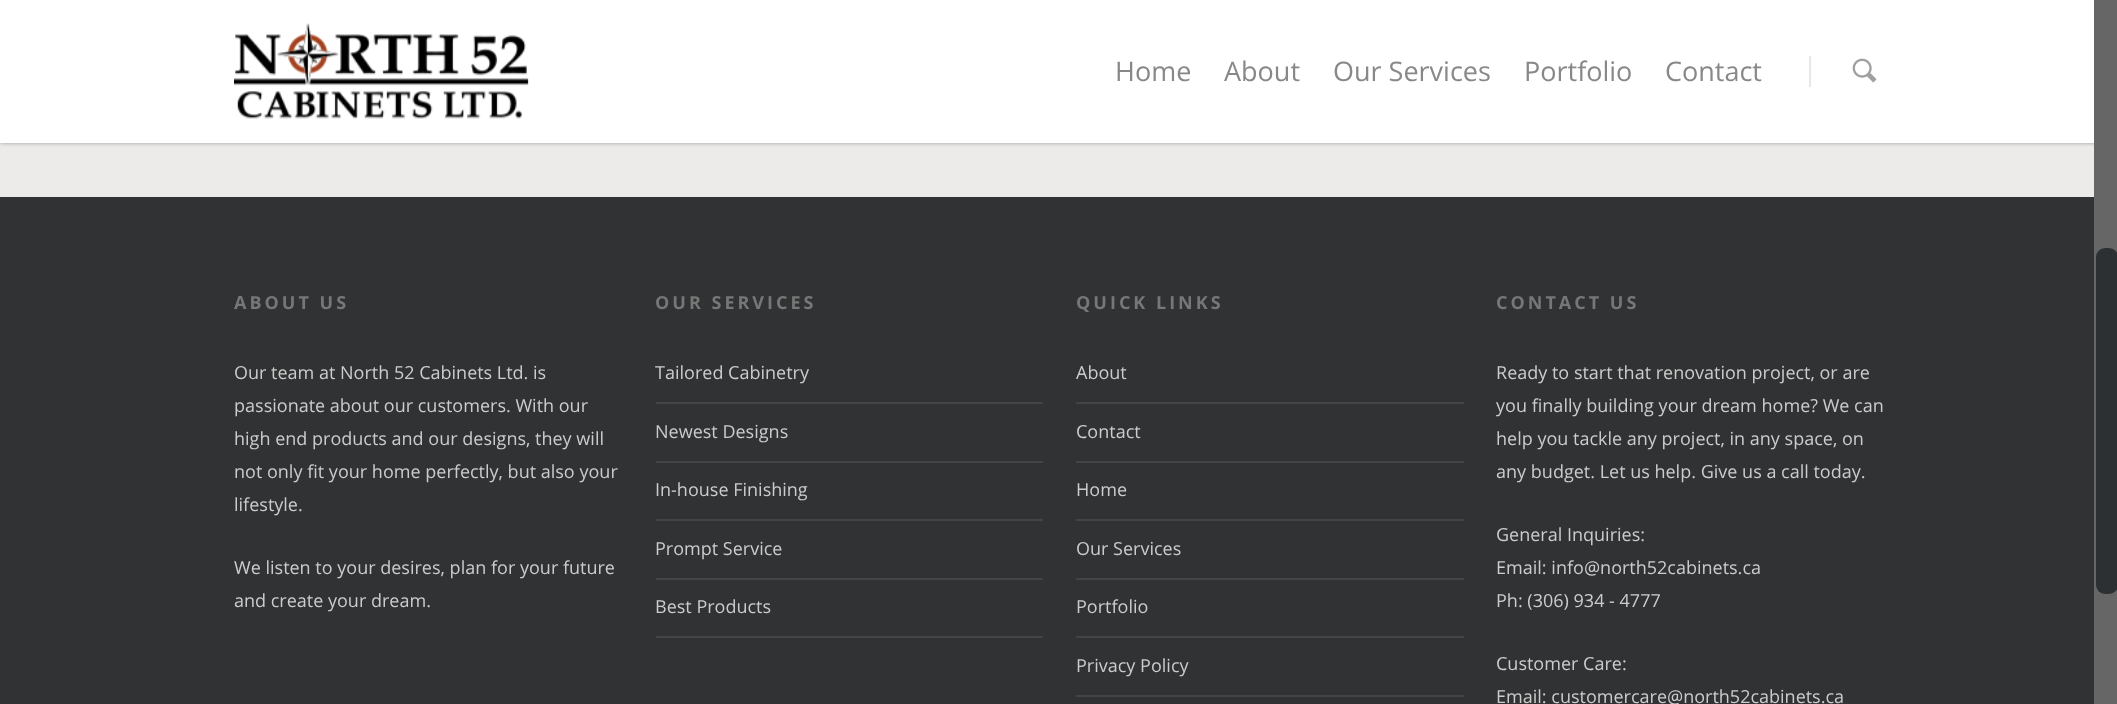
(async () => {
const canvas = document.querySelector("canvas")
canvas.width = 2117
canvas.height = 704
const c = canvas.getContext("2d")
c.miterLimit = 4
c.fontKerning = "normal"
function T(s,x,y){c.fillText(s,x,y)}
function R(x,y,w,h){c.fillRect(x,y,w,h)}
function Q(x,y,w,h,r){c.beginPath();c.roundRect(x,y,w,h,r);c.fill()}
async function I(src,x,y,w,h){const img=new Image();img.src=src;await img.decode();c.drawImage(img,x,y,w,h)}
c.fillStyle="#ecebe9"
R(0,0,2117,704)
c.fillStyle="#00000054"
c.filter="blur(2px)"
c.beginPath()
c.rect(0,0,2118,143)
c.fill()
c.filter="none"
c.fillStyle="#fff"
R(0,0,2094,143)
await I("1.png",234,23,295,96)
c.font="27px 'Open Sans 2'"
c.fillStyle="#888"
T("Home",1115,81)
T("About",1224,81)
T("Our Services",1333,81)
T("Portfolio",1524,81)
T("Contact",1665,81)
c.fillStyle="#e7e7e7"
R(1809,56,2,31)
await I("2.png",1852,58,25,25)
c.fillStyle="#666"
R(2094,0,23,704)
c.fillStyle="#2d3032"
Q(2096,248,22,346,9)
c.fillStyle="#313233"
R(0,197,2094,507)
c.letterSpacing="3px"
c.font="bold 18px Open Sans"
c.fillStyle="#777"
T("ABOUT US",234,309)
c.letterSpacing="0px"
c.font="18px Open Sans"
c.fillStyle="#ccc"
T("Our team at North 52 Cabinets Ltd. is",234,379)
T("passionate about our customers. With our",234,412)
T("high end products and our designs, they will",234,445)
T("not only fit your home perfectly, but also your",234,478)
T("lifestyle.",234,511)
T("We listen to your desires, plan for your future",234,574)
T("and create your dream.",234,607)
c.letterSpacing="3px"
c.font="bold 18px Open Sans"
c.fillStyle="#777"
T("OUR SERVICES",655,309)
c.fillStyle="#444"
R(656,402,387,2)
c.letterSpacing="0px"
c.font="18px Open Sans"
c.fillStyle="#ccc"
T("Tailored Cabinetry",655,379)
c.fillStyle="#444"
R(656,461,387,2)
c.fillStyle="#ccc"
T("Newest Designs",655,438)
c.fillStyle="#444"
R(656,519,387,2)
c.fillStyle="#ccc"
T("In-house Finishing",655,496)
c.fillStyle="#444"
R(656,578,387,2)
c.fillStyle="#ccc"
T("Prompt Service",655,555)
c.fillStyle="#444"
R(656,636,387,2)
c.fillStyle="#ccc"
T("Best Products",655,613)
c.letterSpacing="3px"
c.font="bold 18px Open Sans"
c.fillStyle="#777"
T("QUICK LINKS",1076,309)
c.fillStyle="#444"
R(1076,402,388,2)
c.letterSpacing="0px"
c.font="18px Open Sans"
c.fillStyle="#ccc"
T("About",1076,379)
c.fillStyle="#444"
R(1076,461,388,2)
c.fillStyle="#ccc"
T("Contact",1076,438)
c.fillStyle="#444"
R(1076,519,388,2)
c.fillStyle="#ccc"
T("Home",1076,496)
c.fillStyle="#444"
R(1076,578,388,2)
c.fillStyle="#ccc"
T("Our Services",1076,555)
c.fillStyle="#444"
R(1076,636,388,2)
c.fillStyle="#ccc"
T("Portfolio",1076,613)
c.fillStyle="#444"
R(1076,695,388,2)
c.fillStyle="#ccc"
T("Privacy Policy",1076,672)
c.letterSpacing="3px"
c.font="bold 18px Open Sans"
c.fillStyle="#777"
T("CONTACT US",1496,309)
c.letterSpacing="0px"
c.font="18px Open Sans"
c.fillStyle="#ccc"
T("Ready to start that renovation project, or are",1496,379)
T("you finally building your dream home? We can",1496,412)
T("help you tackle any project, in any space, on",1496,445)
T("any budget. Let us help. Give us a call today.",1496,478)
T("General Inquiries:",1496,541)
T("Email: info@north52cabinets.ca",1496,574)
T("Ph: (306) 934 - 4777",1496,607)
T("Customer Care:",1496,670)
T("Email: customercare@north52cabinets.ca",1496,703)
})()
